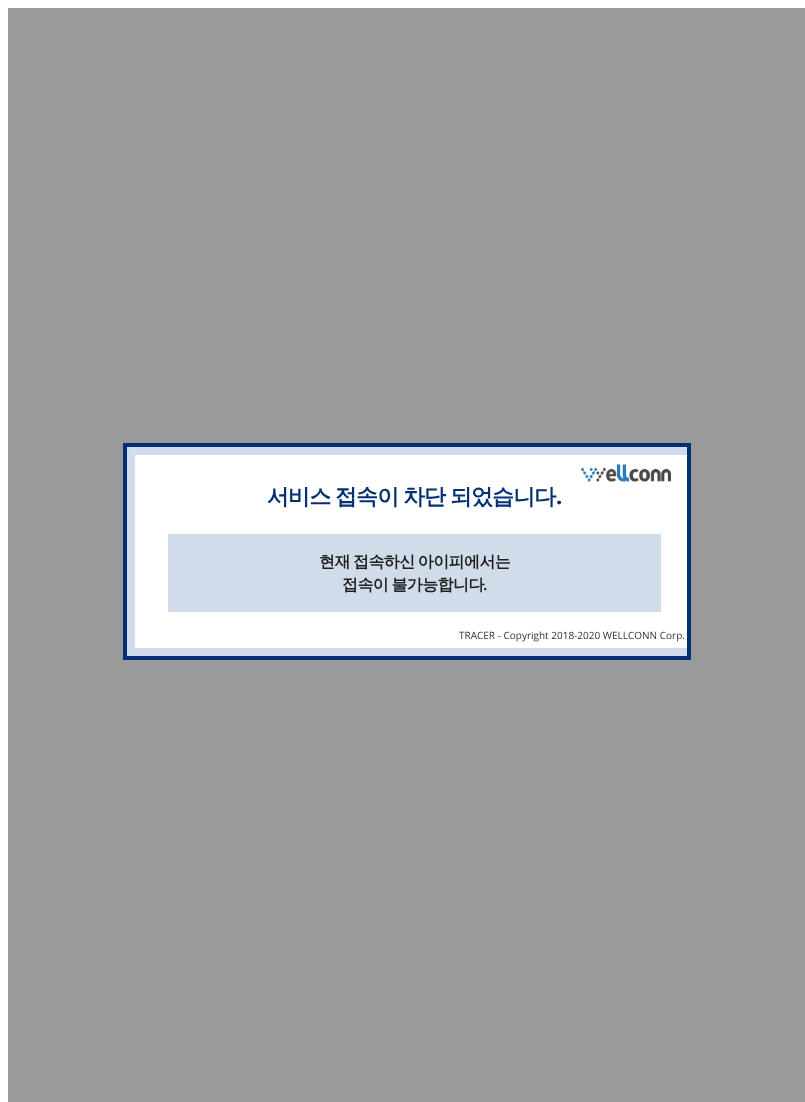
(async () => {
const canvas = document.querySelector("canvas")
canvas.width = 805
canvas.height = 1102
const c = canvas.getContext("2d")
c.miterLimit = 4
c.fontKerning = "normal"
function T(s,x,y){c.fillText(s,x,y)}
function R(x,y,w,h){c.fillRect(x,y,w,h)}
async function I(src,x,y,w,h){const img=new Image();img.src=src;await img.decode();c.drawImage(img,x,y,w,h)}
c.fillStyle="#fff"
R(0,0,805,1102)
c.fillStyle="#9a9a9a"
R(8,8,797,1094)
c.strokeStyle="#033074"
c.lineWidth=4
c.strokeRect(125,445,564,213)
c.fillStyle="#fff"
R(135,455,552,193)
c.save()
c.beginPath()
c.rect(127,447,560,209)
c.clip()
c.strokeStyle="#d0dcea"
c.lineWidth=8
c.strokeRect(131,451,568,201)
c.restore()
await I("1.png",581,464,90,18)
c.letterSpacing="-0.9px"
c.wordSpacing="-1px"
c.font="bold 22px WenQuanYi Zen Hei"
c.fillStyle="#033074"
T("서비스 접속이 차단 되었습니다",267,504)
c.wordSpacing="0px"
c.font="bold 22px Open Sans"
T(".",556,504)
c.fillStyle="#d0dcea"
R(168,534,493,78)
c.letterSpacing="-0.6px"
c.wordSpacing="-1px"
c.font="bold 16px WenQuanYi Zen Hei"
c.fillStyle="#1e1e1e"
T("현재 접속하신 아이피에서는",319,567)
T("접속이 불가능합니다",342,590)
c.wordSpacing="0px"
c.font="600 16px Open Sans"
T(".",483,590)
c.letterSpacing="0px"
c.font="10px Open Sans"
c.fillStyle="#333"
T("TRACER - Copyright 2018-2020 WELLCONN Corp.",459,639)
})()
